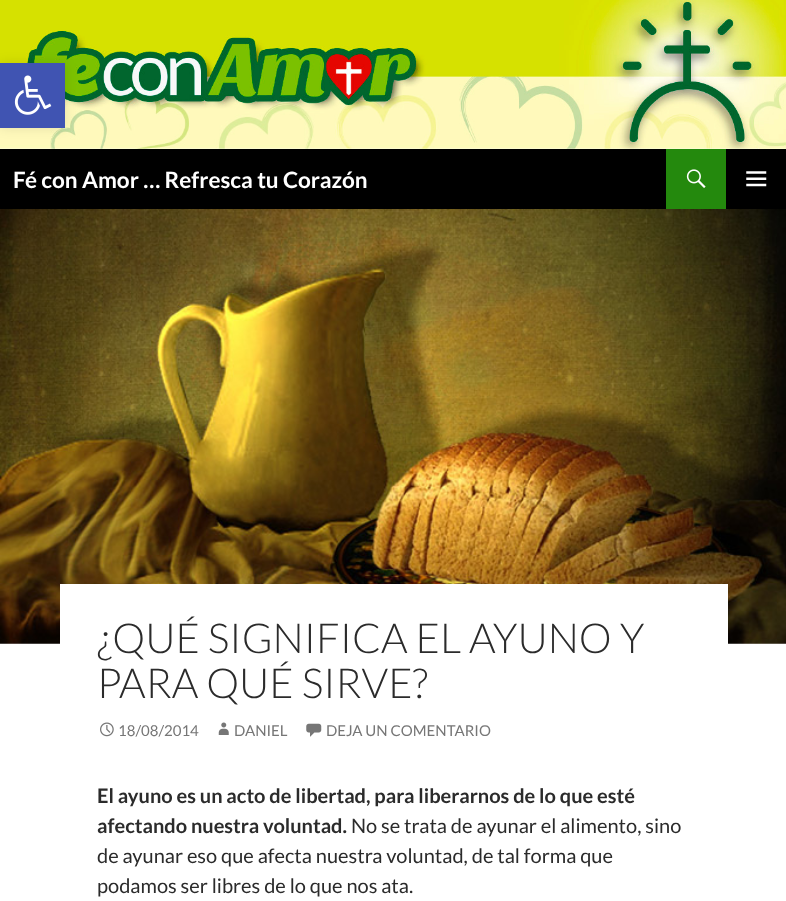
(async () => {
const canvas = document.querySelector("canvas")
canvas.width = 786
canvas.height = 901
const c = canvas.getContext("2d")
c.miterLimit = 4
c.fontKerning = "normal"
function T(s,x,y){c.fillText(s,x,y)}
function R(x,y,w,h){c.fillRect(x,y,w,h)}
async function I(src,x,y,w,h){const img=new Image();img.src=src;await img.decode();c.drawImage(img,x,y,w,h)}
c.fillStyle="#fff"
R(0,0,786,901)
await I("2.png",0,0,786,149)
c.fillStyle="#0000001a"
c.filter="blur(6px)"
c.beginPath()
c.rect(0,63,65,65)
c.fill()
c.filter="none"
c.fillStyle="#4054b2"
R(0,63,65,65)
await I("1.png",14,75,38,40)
c.fillStyle="#000"
R(0,149,786,60)
c.font="bold 22.5px Lato"
c.fillStyle="#fff"
T("Fé con Amor … Refresca tu Corazón",13,188)
c.fillStyle="#24890d"
R(666,149,60,60)
await I("3.png",686,169,20,19)
await I("4.png",746,171,21,16)
await I("5.png",0,643,786,1)
await I("6.png",0,209,786,435)
c.fillStyle="#fff"
R(60,584,668,60)
c.font="300 41.25px Lato"
c.fillStyle="#2b2b2b"
T("¿QUÉ SIGNIFICA EL AYUNO Y",97,653)
T("PARA QUÉ SIRVE?",97,698)
await I("7.png",100,722,14,15)
c.font="15px Lato"
c.fillStyle="#767676"
T("18/08/2014",118,736)
await I("8.png",218,722,11,13)
T("DANIEL",234,736)
await I("9.png",306,723,16,14)
T("DEJA UN COMENTARIO",326,736)
c.font="bold 20px Lato"
c.fillStyle="#2b2b2b"
T("El ayuno es un acto de libertad, para liberarnos de lo que esté",97,803)
T("afectando nuestra voluntad.",97,833)
c.font="20px Lato"
T("No se trata de ayunar el alimento, sino",351,833)
T("de ayunar eso que afecta nuestra voluntad, de tal forma que",97,863)
T("podamos ser libres de lo que nos ata.",97,893)
})()
